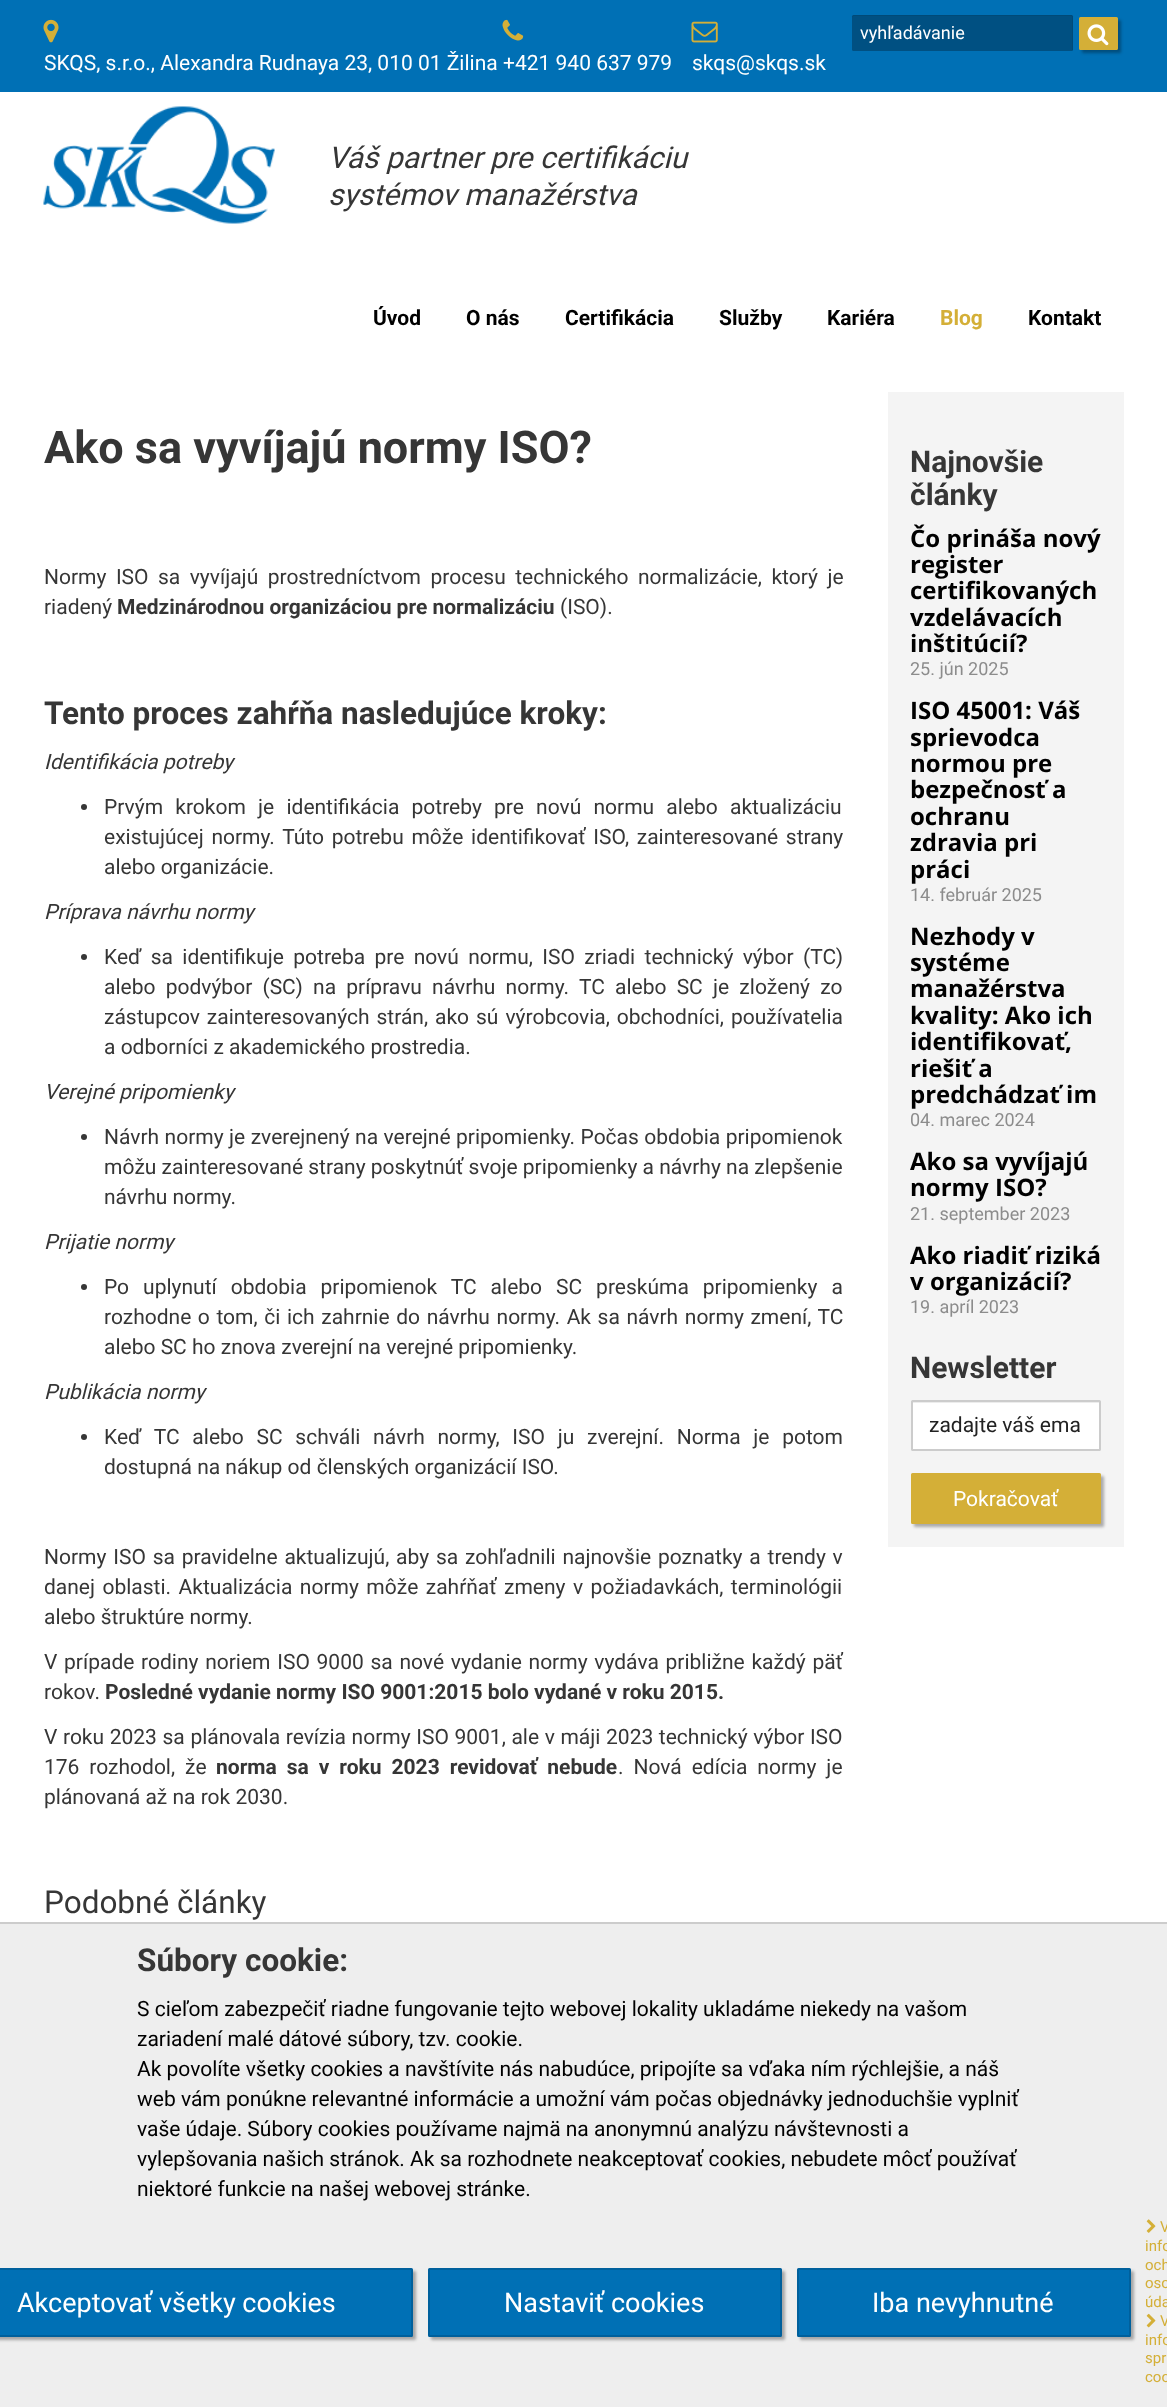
(async () => {
const canvas = document.querySelector("canvas")
canvas.width = 1167
canvas.height = 2407
const c = canvas.getContext("2d")
c.miterLimit = 4
c.fontKerning = "normal"
function T(s,x,y){c.fillText(s,x,y)}
function R(x,y,w,h){c.fillRect(x,y,w,h)}
function Q(x,y,w,h,r){c.beginPath();c.roundRect(x,y,w,h,r);c.fill()}
async function I(src,x,y,w,h){const img=new Image();img.src=src;await img.decode();c.drawImage(img,x,y,w,h)}
let path
c.fillStyle="#fff"
R(0,0,1167,2407)
c.fillStyle="#0070b5"
R(0,0,1167,92)
c.fillStyle="#005082"
Q(852,15,221,36,1.5)
c.fillStyle="#00000012"
path = new Path2D("M854 16h217c1 0 1 1 1 2v33l1-1v-34l-1-1h-219c-1 1-1 2-1 3c0-1 1-2 2-2z")
c.fill(path)
c.font="18px Roboto"
c.fillStyle="#fff"
T("vyhľadávanie",860,39)
c.fillStyle="#0000004d"
c.filter="blur(1.5px)"
c.beginPath()
c.roundRect(1082,20,39,33,1.5)
c.fill()
c.filter="none"
c.fillStyle="#d4af37"
c.beginPath()
c.roundRect(1080,18,37,31,.5)
c.fill()
c.strokeStyle="#d4af37"
c.lineWidth=2
c.stroke()
await I("1.png",1087,24,22,22)
await I("2.png",43,19,16,24)
c.font="21px Roboto"
c.fillStyle="#fff"
T("SKQS, s.r.o., Alexandra Rudnaya 23, 010 01 Žilina",44,70)
await I("3.png",502,19,22,22)
T("+421 940 637 979",503,70)
await I("4.png",691,21,27,22)
T("skqs@skqs.sk",692,70)
await I("5.png",43,106,232,118)
c.font="italic 30px Roboto"
c.fillStyle="#363636"
T("Váš partner pre certifikáciu",328,168)
T("systémov manažérstva",328,205)
c.font="bold 21px Roboto"
c.fillStyle="#000"
T("Úvod",373,325)
T("O nás",466,325)
T("Certifikácia",565,325)
T("Služby",719,325)
T("Kariéra",827,325)
c.fillStyle="#d4af37"
T("Blog",940,325)
c.fillStyle="#000"
T("Kontakt",1028,325)
c.font="bold 45px Roboto"
c.fillStyle="#363636"
T("Ako sa vyvíjajú normy ISO?",44,463)
c.wordSpacing="4.25px"
c.font="21px Roboto"
T("Normy ISO sa vyvíjajú prostredníctvom procesu technického normalizácie, ktorý je",44,584)
c.wordSpacing="0px"
T("riadený",44,614)
c.font="bold 21px Roboto"
T("Medzinárodnou organizáciou pre normalizáciu",117,614)
c.font="21px Roboto"
T("(ISO).",560,614)
c.font="bold 31.5px Roboto"
T("Tento proces zahŕňa nasledujúce kroky:",44,724)
c.font="italic 21px Roboto"
T("Identifikácia potreby",44,769)
c.beginPath()
c.arc(84,807,3,0,7)
c.fill()
c.wordSpacing="7px"
c.font="21px Roboto"
T("Prvým krokom je identifikácia potreby pre novú normu alebo aktualizáciu",104,814)
c.wordSpacing="2.5px"
T("existujúcej normy. Túto potrebu môže identifikovať ISO, zainteresované strany",104,844)
c.wordSpacing="0px"
T("alebo organizácie.",104,874)
c.font="italic 21px Roboto"
T("Príprava návrhu normy",44,919)
c.beginPath()
c.arc(84,957,3,0,7)
c.fill()
c.wordSpacing="4.1px"
c.font="21px Roboto"
T("Keď sa identifikuje potreba pre novú normu, ISO zriadi technický výbor (TC)",104,964)
c.wordSpacing="5px"
T("alebo podvýbor (SC) na prípravu návrhu normy. TC alebo SC je zložený zo",104,994)
c.wordSpacing="1.75px"
T("zástupcov zainteresovaných strán, ako sú výrobcovia, obchodníci, používatelia",104,1024)
c.wordSpacing="0px"
T("a odborníci z akademického prostredia.",104,1054)
c.font="italic 21px Roboto"
T("Verejné pripomienky",44,1099)
c.beginPath()
c.arc(84,1137,3,0,7)
c.fill()
c.wordSpacing="0.25px"
c.font="21px Roboto"
T("Návrh normy je zverejnený na verejné pripomienky. Počas obdobia pripomienok",104,1144)
c.wordSpacing="0px"
T("môžu zainteresované strany poskytnúť svoje pripomienky a návrhy na zlepšenie",104,1174)
T("návrhu normy.",104,1204)
c.font="italic 21px Roboto"
T("Prijatie normy",44,1249)
c.beginPath()
c.arc(84,1287,3,0,7)
c.fill()
c.wordSpacing="8.75px"
c.font="21px Roboto"
T("Po uplynutí obdobia pripomienok TC alebo SC preskúma pripomienky a",104,1294)
c.wordSpacing="1.4px"
T("rozhodne o tom, či ich zahrnie do návrhu normy. Ak sa návrh normy zmení, TC",104,1324)
c.wordSpacing="0px"
T("alebo SC ho znova zverejní na verejné pripomienky.",104,1354)
c.font="italic 21px Roboto"
T("Publikácia normy",44,1399)
c.beginPath()
c.arc(84,1437,3,0,7)
c.fill()
c.wordSpacing="7.5px"
c.font="21px Roboto"
T("Keď TC alebo SC schváli návrh normy, ISO ju zverejní. Norma je potom",104,1444)
c.wordSpacing="0px"
T("dostupná na nákup od členských organizácií ISO.",104,1474)
c.wordSpacing="1.6px"
T("Normy ISO sa pravidelne aktualizujú, aby sa zohľadnili najnovšie poznatky a trendy v",44,1564)
c.wordSpacing="2.25px"
T("danej oblasti. Aktualizácia normy môže zahŕňať zmeny v požiadavkách, terminológii",44,1594)
c.wordSpacing="0px"
T("alebo štruktúre normy.",44,1624)
c.wordSpacing="1.5px"
T("V prípade rodiny noriem ISO 9000 sa nové vydanie normy vydáva približne každý päť",44,1669)
c.wordSpacing="0px"
T("rokov.",44,1699)
c.font="bold 21px Roboto"
T("Posledné vydanie normy ISO 9001:2015 bolo vydané v roku 2015.",105,1699)
c.wordSpacing="0.4px"
c.font="21px Roboto"
T("V roku 2023 sa plánovala revízia normy ISO 9001, ale v máji 2023 technický výbor ISO",44,1744)
c.wordSpacing="4.75px"
T("176 rozhodol, že",44,1774)
c.font="bold 21px Roboto"
T("norma sa v roku 2023 revidovať nebude",216,1774)
c.font="21px Roboto"
T(". Nová edícia normy je",618,1774)
c.wordSpacing="0px"
T("plánovaná až na rok 2030.",44,1804)
c.fillStyle="#f4f4f4"
R(888,392,236,1155)
c.font="bold 30px Roboto"
c.fillStyle="#363636"
T("Najnovšie",910,472)
T("články",910,505)
c.font="bold 24px Open Sans"
c.fillStyle="#000"
T("Čo prináša nový",910,547)
T("register",910,573)
T("certifikovaných",910,599)
T("vzdelávacích",910,626)
T("inštitúcií?",910,652)
c.font="18px Roboto"
c.fillStyle="#8c8c8c"
T("25. jún 2025",910,675)
c.font="bold 24px Open Sans"
c.fillStyle="#000"
T("ISO 45001: Váš",910,719)
T("sprievodca",910,746)
T("normou pre",910,772)
T("bezpečnosť a",910,798)
T("ochranu",910,825)
T("zdravia pri",910,851)
T("práci",910,878)
c.font="18px Roboto"
c.fillStyle="#8c8c8c"
T("14. február 2025",910,901)
c.font="bold 24px Open Sans"
c.fillStyle="#000"
T("Nezhody v",910,945)
T("systéme",910,971)
T("manažérstva",910,997)
T("kvality: Ako ich",910,1024)
T("identifikovať,",910,1050)
T("riešiť a",910,1077)
T("predchádzať im",910,1103)
c.font="18px Roboto"
c.fillStyle="#8c8c8c"
T("04. marec 2024",910,1126)
c.font="bold 24px Open Sans"
c.fillStyle="#000"
T("Ako sa vyvíjajú",910,1170)
T("normy ISO?",910,1196)
c.font="18px Roboto"
c.fillStyle="#8c8c8c"
T("21. september 2023",910,1220)
c.font="bold 24px Open Sans"
c.fillStyle="#000"
T("Ako riadiť riziká",910,1264)
T("v organizácií?",910,1290)
c.font="18px Roboto"
c.fillStyle="#8c8c8c"
T("19. apríl 2023",910,1313)
c.font="bold 30px Roboto"
c.fillStyle="#363636"
T("Newsletter",910,1378)
c.fillStyle="#fff"
Q(911,1400,190,51,1.5)
c.fillStyle="#ececec"
R(912,1402,188,1)
c.beginPath()
c.roundRect(912,1401,188,49,.5)
c.strokeStyle="#ccc"
c.stroke()
c.font="21px Roboto"
c.fillStyle="#222"
T("zadajte váš ema",929,1432)
c.fillStyle="#0000004d"
c.filter="blur(1.5px)"
c.beginPath()
c.roundRect(914,1476,190,51,1.5)
c.fill()
c.filter="none"
c.fillStyle="#d4af37"
c.beginPath()
c.roundRect(912,1474,188,49,.5)
c.fill()
c.strokeStyle="#d4af37"
c.stroke()
c.fillStyle="#fff"
T("Pokračovať",953,1506)
c.font="31.5px Roboto"
c.fillStyle="#363636"
T("Podobné články",44,1913)
c.fillStyle="#eee"
R(0,1924,1167,483)
c.fillStyle="#ccc"
R(0,1922,1167,2)
c.font="bold 31.5px Roboto"
c.fillStyle="#363636"
T("Súbory cookie:",137,1971)
c.font="21px Roboto"
c.fillStyle="#000"
T("S cieľom zabezpečiť riadne fungovanie tejto webovej lokality ukladáme niekedy na vašom",137,2016)
T("zariadení malé dátové súbory, tzv. cookie.",137,2046)
T("Ak povolíte všetky cookies a navštívite nás nabudúce, pripojíte sa vďaka ním rýchlejšie, a náš",137,2076)
T("web vám ponúkne relevantné informácie a umožní vám počas objednávky jednoduchšie vyplniť",137,2106)
T("vaše údaje. Súbory cookies používame najmä na anonymnú analýzu návštevnosti a",137,2136)
T("vylepšovania našich stránok. Ak sa rozhodnete neakceptovať cookies, nebudete môcť používať",137,2166)
T("niektoré funkcie na našej webovej stránke.",137,2196)
c.fillStyle="#0000004d"
c.filter="blur(1.5px)"
c.beginPath()
c.roundRect(-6,2271,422,69,1.5)
c.fill()
c.filter="none"
c.fillStyle="#0070b5"
c.beginPath()
c.roundRect(-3,2269,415,67,.5)
c.fill()
c.strokeStyle="#00609c"
c.stroke()
c.font="27px Roboto"
c.fillStyle="#fff"
T("Akceptovať všetky cookies",17,2312)
c.fillStyle="#0000004d"
c.filter="blur(1.5px)"
c.beginPath()
c.roundRect(431,2271,354,69,1.5)
c.fill()
c.filter="none"
c.fillStyle="#0070b5"
c.beginPath()
c.roundRect(429,2269,352,67,.5)
c.fill()
c.stroke()
c.fillStyle="#fff"
T("Nastaviť cookies",504,2312)
c.fillStyle="#0000004d"
c.filter="blur(1.5px)"
c.beginPath()
c.roundRect(800,2271,334,69,1.5)
c.fill()
c.filter="none"
c.fillStyle="#0070b5"
c.beginPath()
c.roundRect(798,2269,332,67,.5)
c.fill()
c.stroke()
c.fillStyle="#fff"
T("Iba nevyhnutné",872,2312)
await I("6.png",1146,2219,10,14)
c.font="15px Roboto"
c.fillStyle="#d4af37"
T("V",1160,2232)
T("info",1145,2251)
T("och",1145,2270)
T("oso",1145,2288)
T("úda",1145,2307)
await I("7.png",1146,2313,10,15)
T("V",1160,2326)
T("info",1145,2345)
T("spr",1145,2363)
T("coo",1145,2382)
})()
